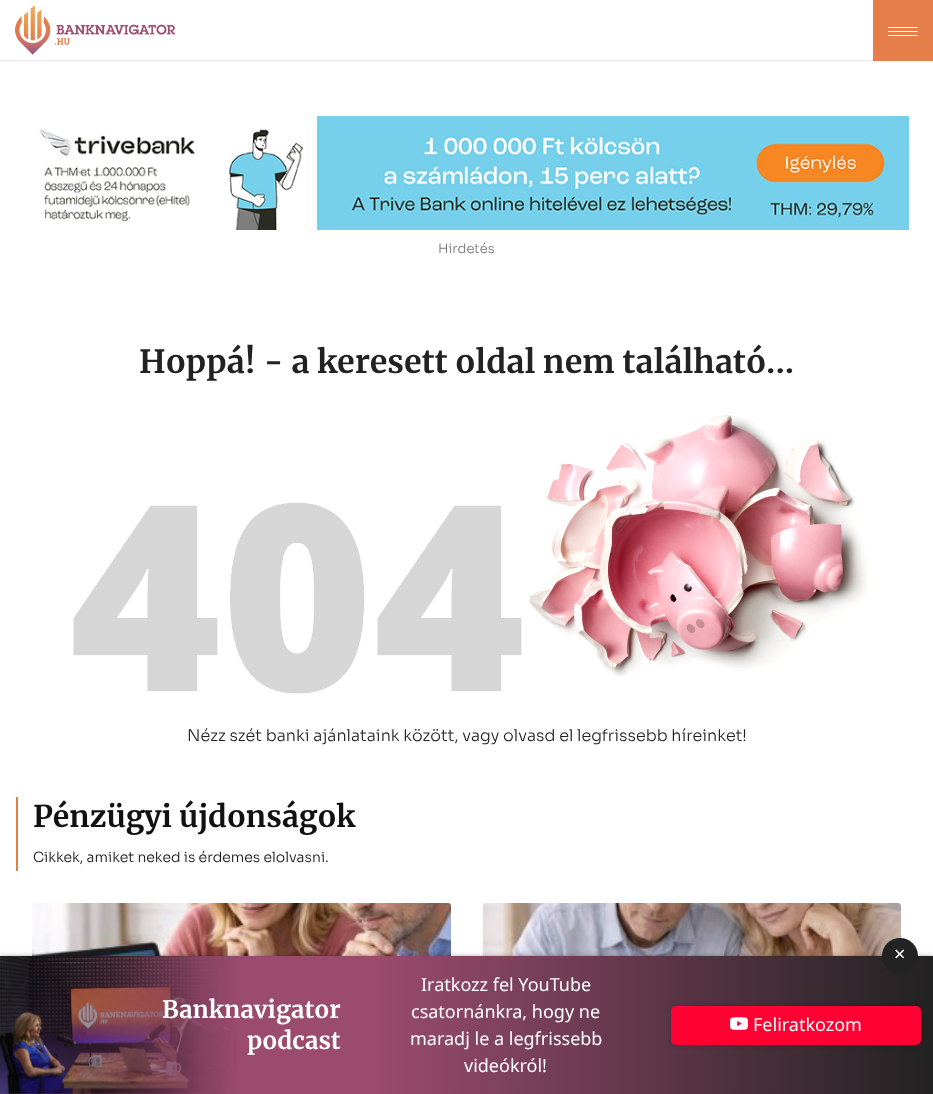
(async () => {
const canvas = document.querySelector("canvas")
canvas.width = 933
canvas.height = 1094
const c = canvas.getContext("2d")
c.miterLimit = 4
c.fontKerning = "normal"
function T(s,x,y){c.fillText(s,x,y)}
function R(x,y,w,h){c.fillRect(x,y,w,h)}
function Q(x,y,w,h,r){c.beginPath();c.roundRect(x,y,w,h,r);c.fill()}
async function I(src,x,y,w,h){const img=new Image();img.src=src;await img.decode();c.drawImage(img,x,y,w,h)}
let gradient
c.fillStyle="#fff"
R(0,0,933,1094)
c.save()
c.beginPath()
c.rect(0,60,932,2)
c.clip()
c.fillStyle="#00000033"
c.filter="blur(1.5px)"
c.beginPath()
c.rect(0,0,933,60)
c.fill()
c.filter="none"
c.restore()
await I("1.png",15,5,161,50)
c.fillStyle="#e57e4a"
R(873,0,60,61)
c.fillStyle="#fff"
Q(888,27,30,1,.5)
Q(888,31,30,1,.5)
Q(888,35,30,1,.5)
await I("2.png",39,116,870,114)
c.font="300 13px Sora"
c.fillStyle="#777"
T("Hirdetés",438,253)
c.font="bold 32px Merriweather"
c.fillStyle="#222"
T("Hoppá! - a keresett oldal nem található...",139,373)
await I("3.png",73,415,794,279)
c.font="300 16px Sora"
T("Nézz szét banki ajánlataink között, vagy olvasd el legfrissebb híreinket!",187,741)
c.fillStyle="#e57e4a"
R(16,797,2,74)
c.font="bold 30px Merriweather"
c.fillStyle="#111"
T("Pénzügyi újdonságok",33,827)
c.font="300 14px Sora"
T("Cikkek, amiket neked is érdemes elolvasni.",33,862)
await I("4.png",32,903,419,53)
await I("5.png",483,903,418,53)
c.fillStyle="#0000004d"
c.filter="blur(2.5px)"
c.beginPath()
c.rect(0,956,933,138)
c.fill()
c.filter="none"
gradient = c.createLinearGradient(0,1025,933,1025)
gradient.addColorStop(.4,"#9b4b6e")
gradient.addColorStop(1,"#222")
c.fillStyle = gradient
R(0,956,933,138)
await I("6.png",0,956,237,138)
c.fillStyle="#222"
c.beginPath()
c.arc(900,956,18,0,7)
c.fill()
c.font="20px Noto Sans"
c.fillStyle="#fff"
T("×",894,961)
c.font="bold 24px Merriweather"
T("Banknavigator",162,1018)
T("podcast",247,1049)
c.font="18px Noto Sans"
T("Iratkozz fel YouTube",421,991)
T("csatornánkra, hogy ne",411,1018)
T("maradj le a legfrissebb",410,1045)
T("videókról!",464,1072)
c.fillStyle="#00000033"
c.filter="blur(2.5px)"
c.beginPath()
c.roundRect(671,1006,250,39,5)
c.fill()
c.filter="none"
c.fillStyle="#f03"
Q(671,1006,250,39,5)
await I("7.png",730,1017,18,13)
c.fillStyle="#fff"
T("Feliratkozom",753,1031)
})()
